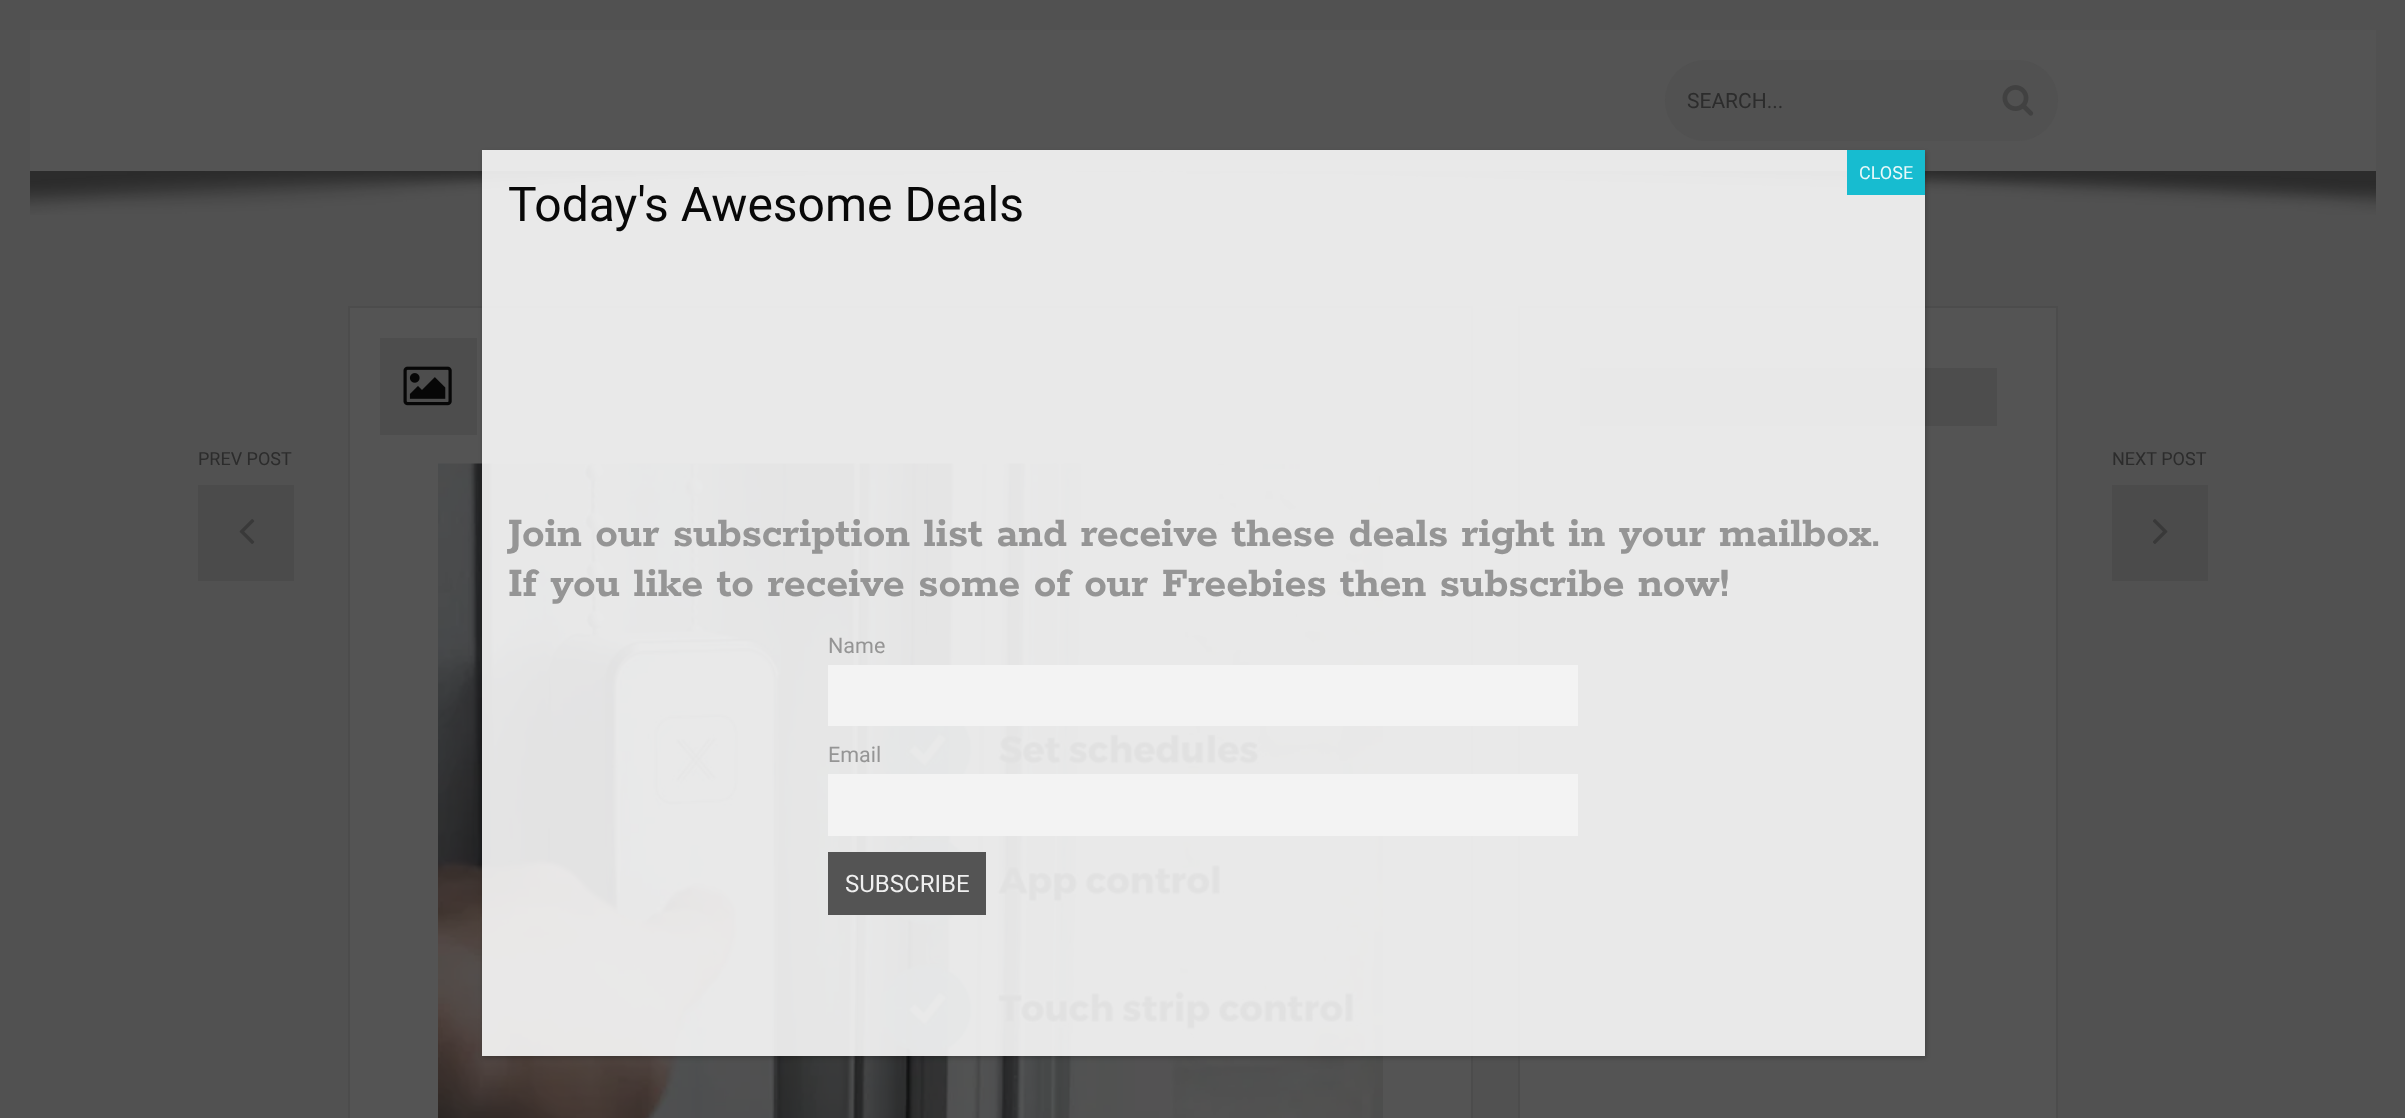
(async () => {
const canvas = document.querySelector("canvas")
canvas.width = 2405
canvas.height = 1118
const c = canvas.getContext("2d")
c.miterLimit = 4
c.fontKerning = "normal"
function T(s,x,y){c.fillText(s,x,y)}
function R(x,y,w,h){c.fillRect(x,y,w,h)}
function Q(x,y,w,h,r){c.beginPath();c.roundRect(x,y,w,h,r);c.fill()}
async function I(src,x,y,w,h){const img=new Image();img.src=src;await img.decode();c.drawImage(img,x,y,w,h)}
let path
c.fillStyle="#515151"
R(0,0,2405,1118)
c.fillStyle="#545454"
R(30,30,2346,141)
c.fillStyle="#515151"
Q(1665,60,393,81,40.5)
c.font="21px Roboto"
c.fillStyle="#2c2c2c"
T("SEARCH...",1687,108)
await I("1.png",2002,85,32,31)
await I("2.png",30,171,2346,44)
c.fillStyle="#545454"
c.beginPath()
c.rect(349,307,1123,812)
c.fill()
c.strokeStyle="#4c4c4c"
c.lineWidth=2
c.stroke()
c.fillStyle="#4d4d4d"
R(380,338,97,97)
await I("3.png",403,366,49,40)
await I("4.png",438,463,945,655)
c.fillStyle="#545454"
c.beginPath()
c.rect(1519,307,538,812)
c.fill()
c.stroke()
c.fillStyle="#4d4d4d"
R(1580,368,417,58)
c.font="18px Roboto"
c.fillStyle="#2c2c2c"
T("PREV POST",198,465)
c.fillStyle="#4b4b4b"
R(198,485,96,96)
await I("5.png",239,519,16,25)
c.fillStyle="#2c2c2c"
T("NEXT POST",2112,465)
c.fillStyle="#4b4b4b"
R(2112,485,96,96)
await I("6.png",2153,519,15,25)
c.save()
path = new Path2D("M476 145h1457v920h-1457zm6 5h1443v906h-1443z")
c.clip(path,"evenodd")
c.fillStyle="#02020236"
c.filter="blur(2px)"
c.beginPath()
c.rect(483,152,1443,906)
c.fill()
c.filter="none"
c.restore()
c.fillStyle="#f9f9f9e6"
R(482,150,1443,906)
c.fillStyle="#00b7cde6"
R(1847,150,78,45)
c.fillStyle="#e9f9fa"
T("CLOSE",1859,179)
c.font="48px Roboto"
c.fillStyle="#080808"
T("Today's Awesome Deals",508,221)
c.font="600 45px Rokkitt"
c.fillStyle="#959595"
T("Join our subscription list and receive these deals right in your mailbox.",508,546)
T("If you like to receive some of our Freebies then subscribe now!",508,596)
c.font="21.5px Roboto"
T("Name",828,653)
c.fillStyle="#f4f4f4e6"
R(828,665,750,61)
c.fillStyle="#959595"
T("Email",828,762)
c.fillStyle="#f4f4f4e6"
R(828,774,750,62)
c.fillStyle="#444444e6"
R(828,852,158,63)
c.font="24px Roboto"
c.fillStyle="#efefef"
T("SUBSCRIBE",845,892)
})()
